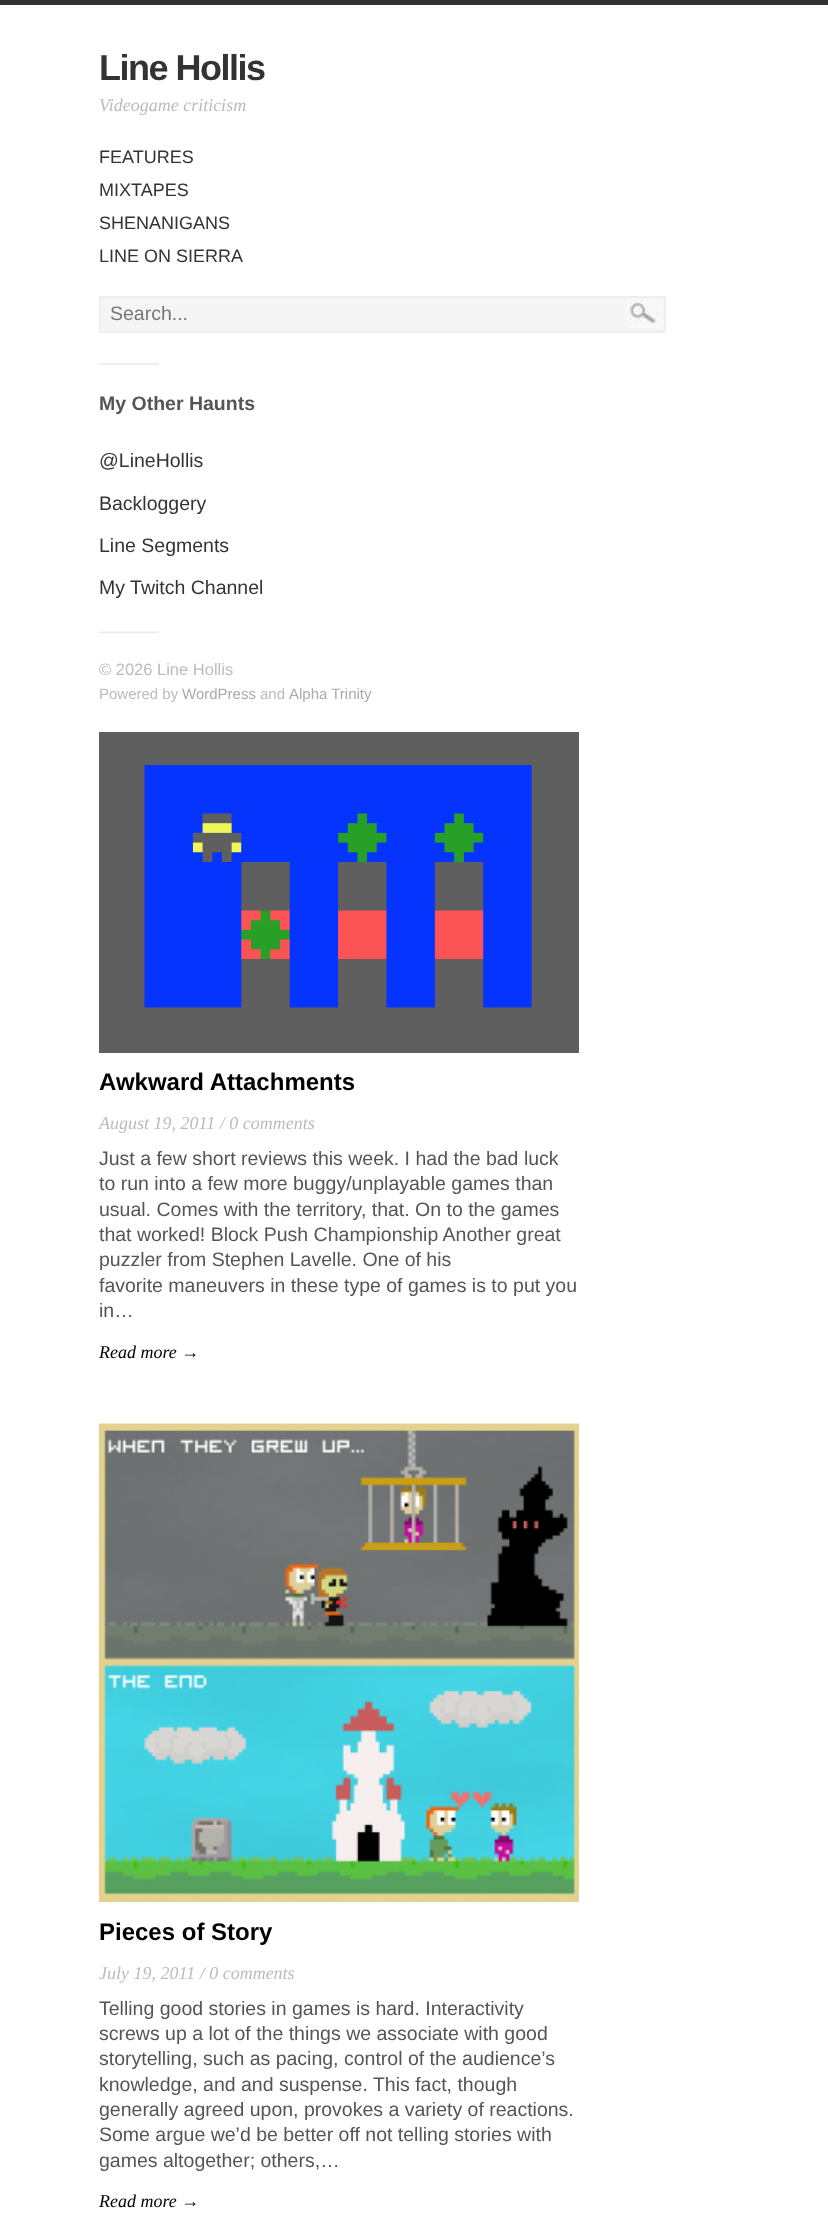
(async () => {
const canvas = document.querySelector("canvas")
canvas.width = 828
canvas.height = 2232
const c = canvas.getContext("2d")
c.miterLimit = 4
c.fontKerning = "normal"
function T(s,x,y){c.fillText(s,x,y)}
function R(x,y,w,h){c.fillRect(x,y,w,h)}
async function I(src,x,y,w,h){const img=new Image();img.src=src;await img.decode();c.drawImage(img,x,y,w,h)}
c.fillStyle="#fff"
R(0,0,828,2232)
c.fillStyle="#333"
R(0,0,828,5)
c.letterSpacing="-1.5px"
c.font="bold 36px Liberation Sans"
T("Line Hollis",99,80)
c.letterSpacing="0px"
c.font="italic 18px Liberation Serif"
c.fillStyle="#bbb"
T("Videogame criticism",99,111)
c.font="18px Liberation Sans"
c.fillStyle="#333"
T("FEATURES",99,163)
T("MIXTAPES",99,196)
T("SHENANIGANS",99,229)
T("LINE ON SIERRA",99,262)
c.fillStyle="#f5f5f5"
R(101,298,563,33)
await I("1.png",625,298,39,31)
c.strokeStyle="#eee"
c.lineWidth=2
c.strokeRect(100,297,565,35)
c.font="19.5px Liberation Sans"
c.fillStyle="#757575"
T("Search...",110,320)
await I("2.png",99,363,60,2)
c.font="bold 19.5px Liberation Sans"
c.fillStyle="#555"
T("My Other Haunts",99,410)
c.font="19.5px Liberation Sans"
c.fillStyle="#333"
T("@LineHollis",99,467)
T("Backloggery",99,510)
T("Line Segments",99,552)
T("My Twitch Channel",99,594)
await I("3.png",99,631,60,2)
c.font="16.5px Liberation Sans"
c.fillStyle="#bbb"
T("© 2026 Line Hollis",99,675)
c.font="15px Liberation Sans"
T("Powered by",99,699)
c.fillStyle="#aaa"
T("WordPress",182,699)
c.fillStyle="#bbb"
T("and",260,699)
c.fillStyle="#aaa"
T("Alpha Trinity",289,699)
await I("4.png",99,732,480,321)
c.font="bold 24px Liberation Sans"
c.fillStyle="#000"
T("Awkward Attachments",99,1090)
c.font="italic 18px Liberation Serif"
c.fillStyle="#bbb"
T("August 19, 2011 / 0 comments",99,1129)
c.font="19.5px Liberation Sans"
c.fillStyle="#555"
T("Just a few short reviews this week. I had the bad luck",99,1165)
T("to run into a few more buggy/unplayable games than",99,1190)
T("usual. Comes with the territory, that. On to the games",99,1216)
T("that worked! Block Push Championship Another great",99,1241)
T("puzzler from Stephen Lavelle. One of his",99,1266)
T("favorite maneuvers in these type of games is to put you",99,1292)
T("in…",99,1317)
c.font="italic 18px Liberation Serif"
c.fillStyle="#000"
T("Read more →",99,1358)
await I("5.png",99,1423,480,479)
c.font="bold 24px Liberation Sans"
T("Pieces of Story",99,1940)
c.font="italic 18px Liberation Serif"
c.fillStyle="#bbb"
T("July 19, 2011 / 0 comments",99,1979)
c.font="19.5px Liberation Sans"
c.fillStyle="#555"
T("Telling good stories in games is hard. Interactivity",99,2015)
T("screws up a lot of the things we associate with good",99,2040)
T("storytelling, such as pacing, control of the audience’s",99,2065)
T("knowledge, and and suspense. This fact, though",99,2091)
T("generally agreed upon, provokes a variety of reactions.",99,2116)
T("Some argue we’d be better off not telling stories with",99,2141)
T("games altogether; others,…",99,2167)
c.font="italic 18px Liberation Serif"
c.fillStyle="#000"
T("Read more →",99,2207)
})()
